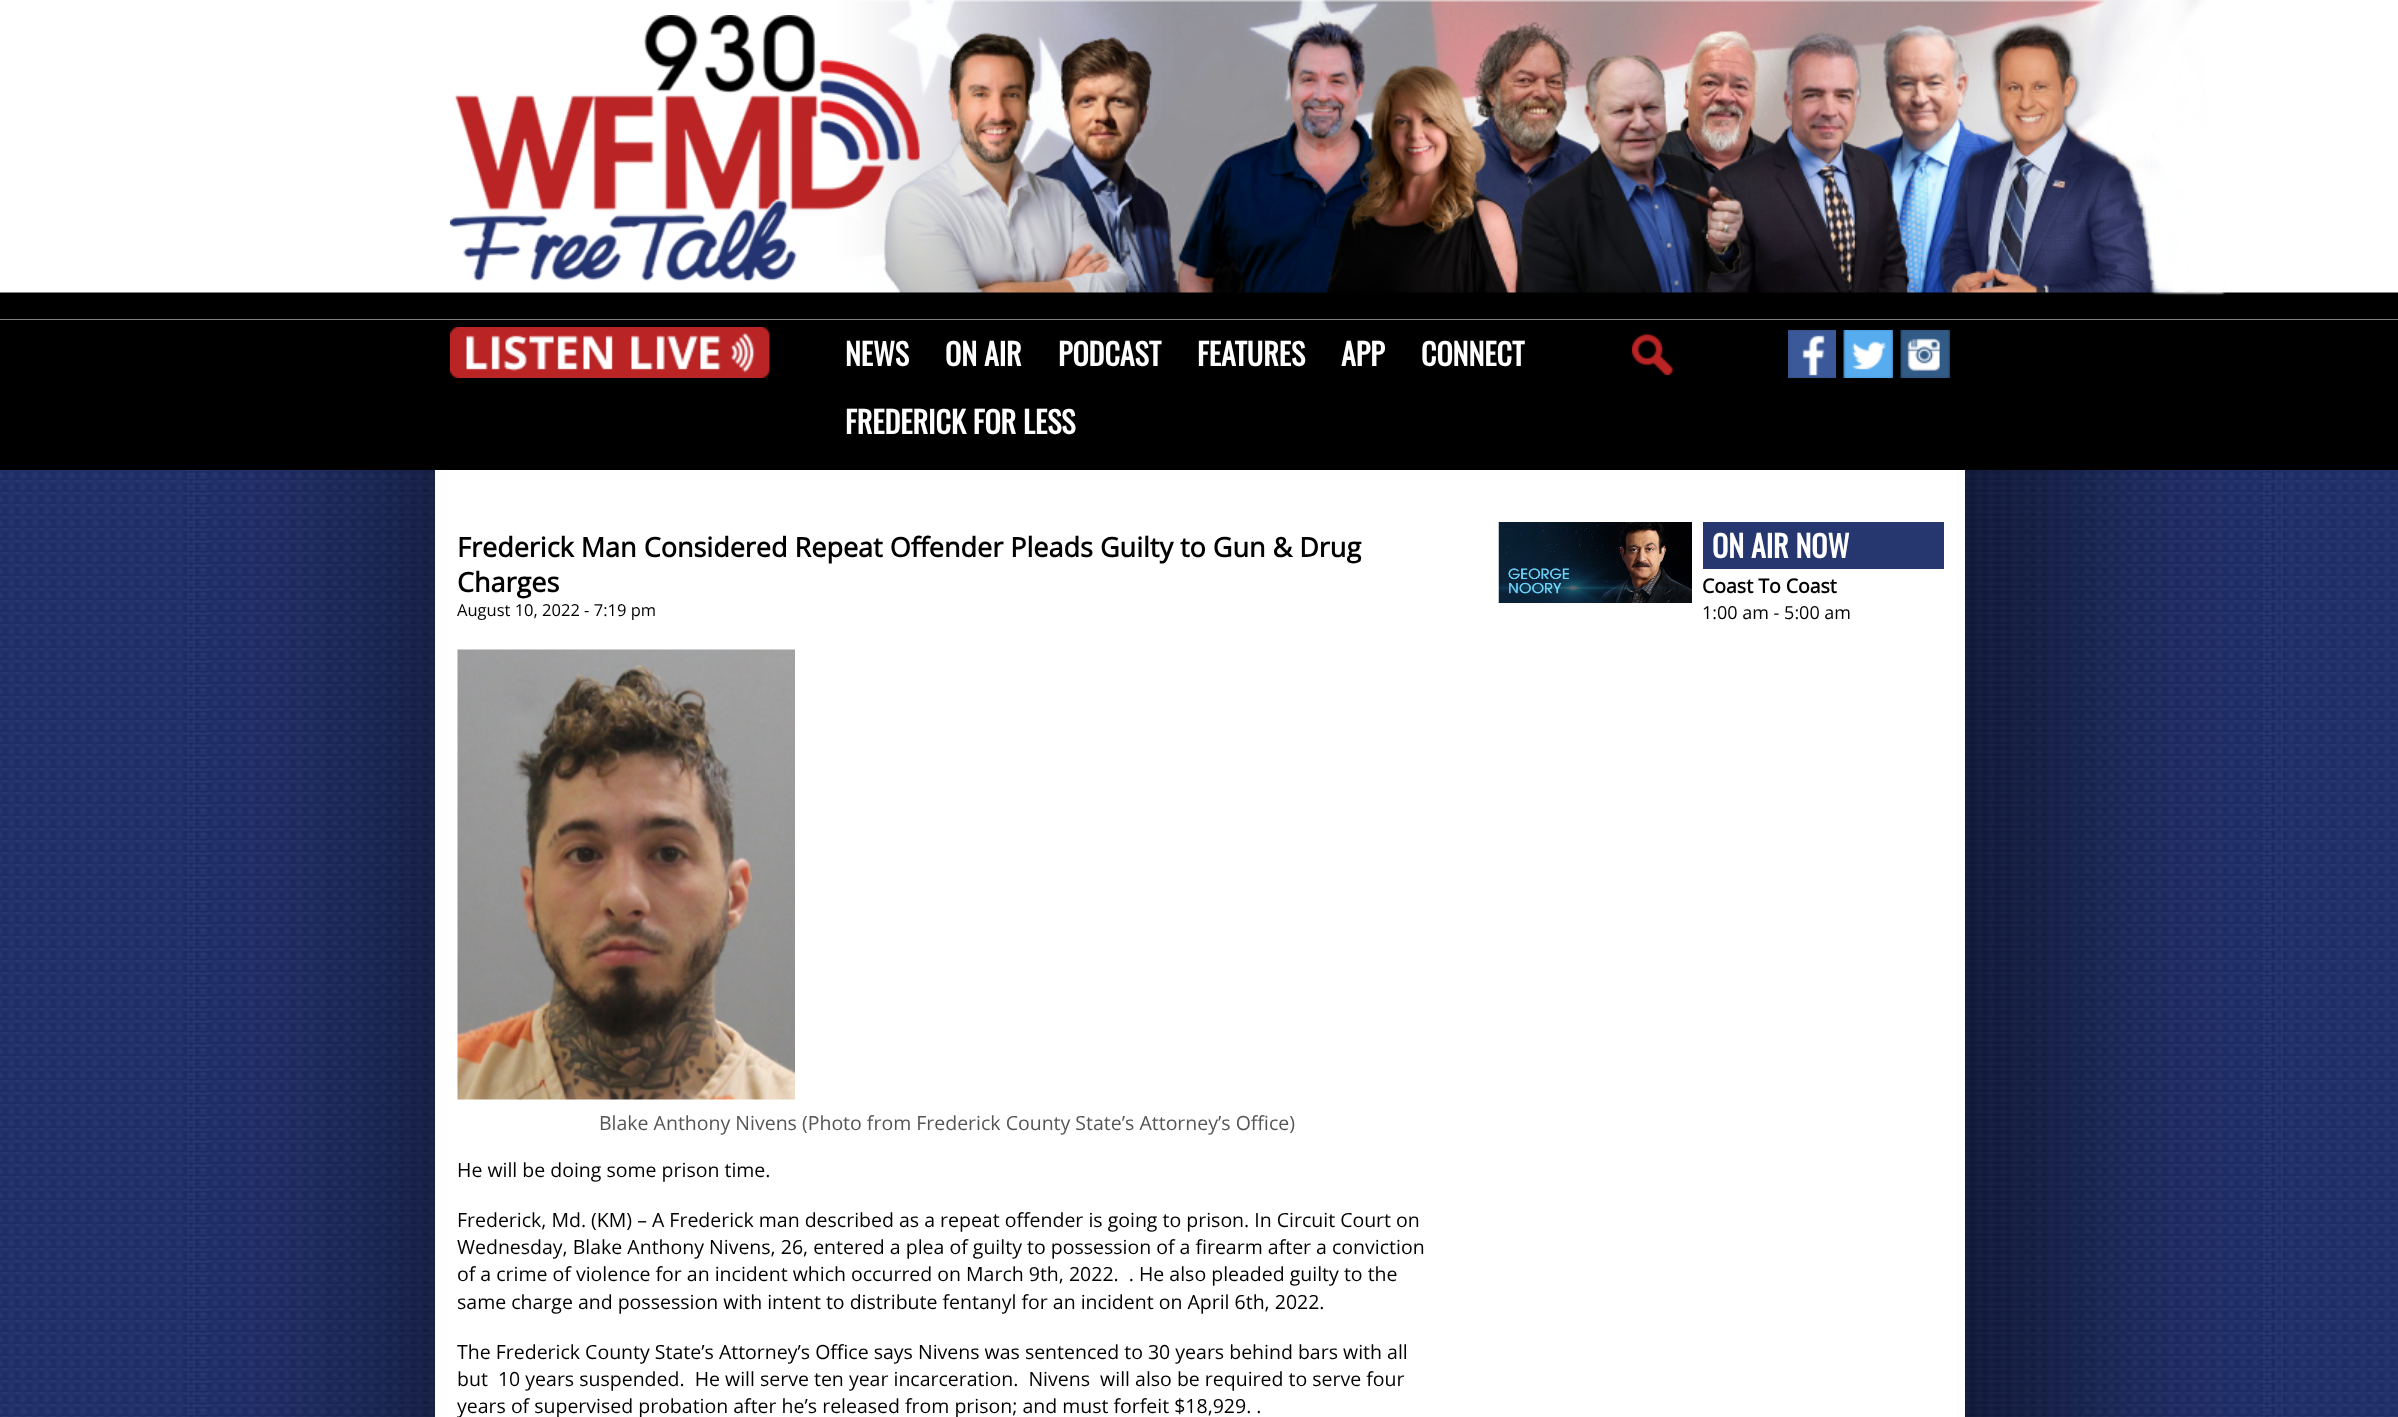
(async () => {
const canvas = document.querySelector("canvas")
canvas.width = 2398
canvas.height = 1417
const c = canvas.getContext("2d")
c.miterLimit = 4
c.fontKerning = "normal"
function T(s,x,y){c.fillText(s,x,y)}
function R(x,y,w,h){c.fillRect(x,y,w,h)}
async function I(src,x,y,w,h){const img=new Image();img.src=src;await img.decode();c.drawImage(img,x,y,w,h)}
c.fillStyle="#fff"
R(0,0,2398,1417)
await I("1.png",0,470,2398,947)
await I("2.png",0,0,2398,320)
await I("3.png",450,15,470,266)
c.fillStyle="#000"
R(0,320,2398,150)
await I("4.png",450,327,320,51)
c.font="bold 30px Oswald"
c.fillStyle="#fff"
T("NEWS",845,366)
T("ON AIR",945,366)
T("PODCAST",1058,366)
T("FEATURES",1197,366)
T("APP",1341,366)
T("CONNECT",1421,366)
T("FREDERICK FOR LESS",845,434)
await I("5.png",1632,334,41,41)
await I("6.png",1788,330,48,48)
await I("7.png",1843,330,50,48)
await I("8.png",1900,330,50,48)
R(435,470,1530,947)
c.font="bold 27px Open Sans"
c.fillStyle="#000"
T("Frederick Man Considered Repeat Offender Pleads Guilty to Gun & Drug",457,557)
T("Charges",457,592)
c.font="16.5px Open Sans"
T("August 10, 2022 - 7:19 pm",457,616)
await I("9.png",457,649,338,451)
c.font="19.5px Open Sans"
c.fillStyle="#555"
T("Blake Anthony Nivens (Photo from Frederick County State’s Attorney’s Office)",599,1130)
c.fillStyle="#000"
T("He will be doing some prison time.",457,1177)
T("Frederick, Md. (KM) – A Frederick man described as a repeat offender is going to prison. In Circuit Court on",457,1227)
T("Wednesday, Blake Anthony Nivens, 26, entered a plea of guilty to possession of a firearm after a conviction",457,1254)
T("of a crime of violence for an incident which occurred on March 9th, 2022.  . He also pleaded guilty to the",457,1281)
T("same charge and possession with intent to distribute fentanyl for an incident on April 6th, 2022.",457,1309)
T("The Frederick County State’s Attorney’s Office says Nivens was sentenced to 30 years behind bars with all",457,1359)
T("but  10 years suspended.  He will serve ten year incarceration.  Nivens  will also be required to serve four",457,1386)
T("years of supervised probation after he’s released from prison; and must forfeit $18,929. .",457,1413)
await I("10.png",1498,522,194,81)
c.fillStyle="#263770"
R(1703,522,241,47)
c.font="bold 30px Oswald"
c.fillStyle="#fff"
T("ON AIR NOW",1712,558)
c.font="bold 19.5px Open Sans"
c.fillStyle="#000"
T("Coast To Coast",1702,593)
c.font="18px Open Sans"
T("1:00 am - 5:00 am",1702,619)
})()
